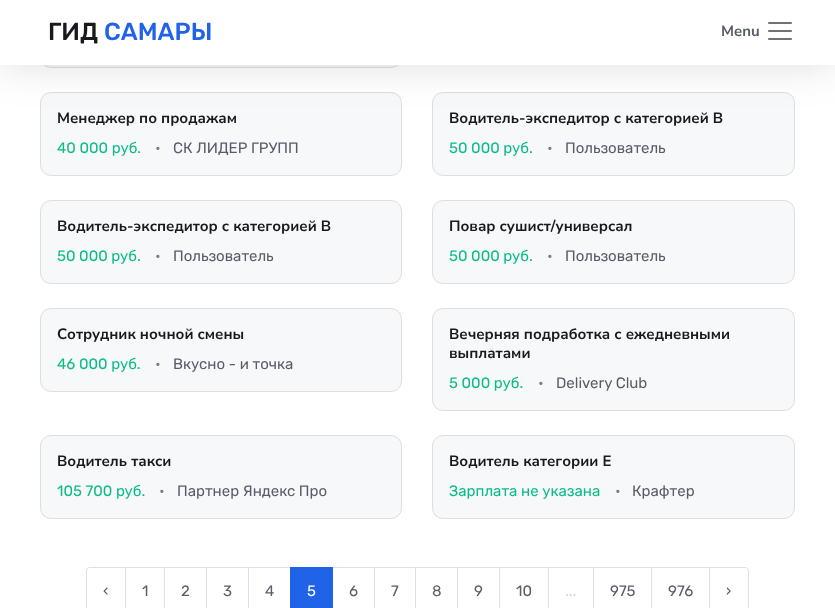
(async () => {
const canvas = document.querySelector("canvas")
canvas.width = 835
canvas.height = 608
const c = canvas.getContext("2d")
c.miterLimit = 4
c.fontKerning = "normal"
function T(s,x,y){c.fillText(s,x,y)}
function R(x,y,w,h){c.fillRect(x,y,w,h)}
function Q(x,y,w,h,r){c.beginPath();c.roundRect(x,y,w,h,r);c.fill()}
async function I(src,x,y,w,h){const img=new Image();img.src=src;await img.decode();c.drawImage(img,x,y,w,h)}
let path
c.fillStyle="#fff"
R(0,0,835,608)
c.fillStyle="#f7f8f9"
Q(40,-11,362,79,11)
c.beginPath()
c.roundRect(40.5,-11.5,361,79,10.5)
c.strokeStyle="#0000001a"
c.stroke()
Q(40,92,362,84,11)
c.beginPath()
c.roundRect(40.5,92.5,361,83,10.5)
c.stroke()
Q(432,92,363,84,11)
c.beginPath()
c.roundRect(432.5,92.5,362,83,10.5)
c.stroke()
c.fillStyle="#53585d33"
c.filter="blur(20px)"
c.beginPath()
c.rect(0,0,835,65)
c.fill()
c.filter="none"
c.fillStyle="#fff"
R(0,0,835,65)
c.font="500 24.5px Rubik"
c.fillStyle="#191a1f"
T("ГИД",48,40)
c.fillStyle="#2163e8"
T("САМАРЫ",104,40)
c.font="bold 15px Nunito Sans"
c.fillStyle="#595d69"
T("Menu",721,36)
await I("1.png",768,22,24,18)
c.fillStyle="#191a1f"
T("Менеджер по продажам",57,123)
c.font="15px Rubik"
c.fillStyle="#0cbc87"
T("40 000 руб.",57,153)
c.fillStyle="#797c86"
T("•",155,153)
c.fillStyle="#595d69"
T("СК ЛИДЕР ГРУПП",173,153)
c.font="bold 15px Nunito Sans"
c.fillStyle="#191a1f"
T("Водитель-экспедитор с категорией В",449,123)
c.font="15px Rubik"
c.fillStyle="#0cbc87"
T("50 000 руб.",449,153)
c.fillStyle="#797c86"
T("•",547,153)
c.fillStyle="#595d69"
T("Пользователь",565,153)
c.fillStyle="#f7f8f9"
Q(40,200,362,84,11)
c.beginPath()
c.roundRect(40.5,200.5,361,83,10.5)
c.stroke()
c.font="bold 15px Nunito Sans"
c.fillStyle="#191a1f"
T("Водитель-экспедитор с категорией В",57,231)
c.font="15px Rubik"
c.fillStyle="#0cbc87"
T("50 000 руб.",57,261)
c.fillStyle="#797c86"
T("•",155,261)
c.fillStyle="#595d69"
T("Пользователь",173,261)
c.fillStyle="#f7f8f9"
Q(432,200,363,84,11)
c.beginPath()
c.roundRect(432.5,200.5,362,83,10.5)
c.stroke()
c.font="bold 15px Nunito Sans"
c.fillStyle="#191a1f"
T("Повар сушист/универсал",449,231)
c.font="15px Rubik"
c.fillStyle="#0cbc87"
T("50 000 руб.",449,261)
c.fillStyle="#797c86"
T("•",547,261)
c.fillStyle="#595d69"
T("Пользователь",565,261)
c.fillStyle="#f7f8f9"
Q(40,308,362,84,11)
c.beginPath()
c.roundRect(40.5,308.5,361,83,10.5)
c.stroke()
c.font="bold 15px Nunito Sans"
c.fillStyle="#191a1f"
T("Сотрудник ночной смены",57,339)
c.font="15px Rubik"
c.fillStyle="#0cbc87"
T("46 000 руб.",57,369)
c.fillStyle="#797c86"
T("•",155,369)
c.fillStyle="#595d69"
T("Вкусно - и точка",173,369)
c.fillStyle="#f7f8f9"
Q(432,308,363,103,11)
c.beginPath()
c.roundRect(432.5,308.5,362,102,10.5)
c.stroke()
c.font="bold 15px Nunito Sans"
c.fillStyle="#191a1f"
T("Вечерняя подработка с ежедневными",449,339)
T("выплатами",449,358)
c.font="15px Rubik"
c.fillStyle="#0cbc87"
T("5 000 руб.",449,388)
c.fillStyle="#797c86"
T("•",538,388)
c.fillStyle="#595d69"
T("Delivery Club",556,388)
c.fillStyle="#f7f8f9"
Q(40,435,362,84,11)
c.beginPath()
c.roundRect(40.5,435.5,361,83,10.5)
c.stroke()
c.font="bold 15px Nunito Sans"
c.fillStyle="#191a1f"
T("Водитель такси",57,466)
c.font="15px Rubik"
c.fillStyle="#0cbc87"
T("105 700 руб.",57,496)
c.fillStyle="#797c86"
T("•",159,496)
c.fillStyle="#595d69"
T("Партнер Яндекс Про",177,496)
c.fillStyle="#f7f8f9"
Q(432,435,363,84,11)
c.beginPath()
c.roundRect(432.5,435.5,362,83,10.5)
c.stroke()
c.font="bold 15px Nunito Sans"
c.fillStyle="#191a1f"
T("Водитель категории Е",449,466)
c.font="15px Rubik"
c.fillStyle="#0cbc87"
T("Зарплата не указана",449,496)
c.fillStyle="#797c86"
T("•",615,496)
c.fillStyle="#595d69"
T("Крафтер",632,496)
path = new Path2D("M90 567.5h35.5v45h-35.5c-2 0-3.5-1.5-3.5-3.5v-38c0-2 1.5-3.5 3.5-3.5z")
c.strokeStyle="#dfe0e5"
c.stroke(path)
T("‹",103,596)
c.strokeRect(125.5,567.5,39,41)
T("1",142,596)
c.strokeRect(164.5,567.5,42,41)
T("2",181,596)
c.strokeRect(206.5,567.5,42,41)
T("3",223,596)
c.strokeRect(248.5,567.5,42,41)
T("4",265,596)
c.strokeRect(332.5,567.5,42,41)
c.fillStyle="#2163e8"
R(290,567,43,41)
c.fillStyle="#fff"
T("5",307,596)
c.fillStyle="#595d69"
T("6",349,596)
c.strokeRect(374.5,567.5,41,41)
T("7",391,596)
c.strokeRect(415.5,567.5,42,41)
T("8",432,596)
c.strokeRect(457.5,567.5,42,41)
T("9",474,596)
c.strokeRect(499.5,567.5,49,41)
T("10",516,596)
c.strokeRect(548.5,567.5,45,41)
c.fillStyle="#d0d4d9"
T("...",565,596)
c.strokeRect(593.5,567.5,58,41)
c.fillStyle="#595d69"
T("975",610,596)
c.strokeRect(651.5,567.5,58,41)
T("976",668,596)
c.fillStyle="#fff"
path = new Path2D("M709.5 567.5h35.5c2 0 3.5 1.5 3.5 3.5v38c0 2-1.5 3.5-3.5 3.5h-35.5z")
c.fill(path)
c.stroke(path)
c.fillStyle="#595d69"
T("›",726,596)
})()
